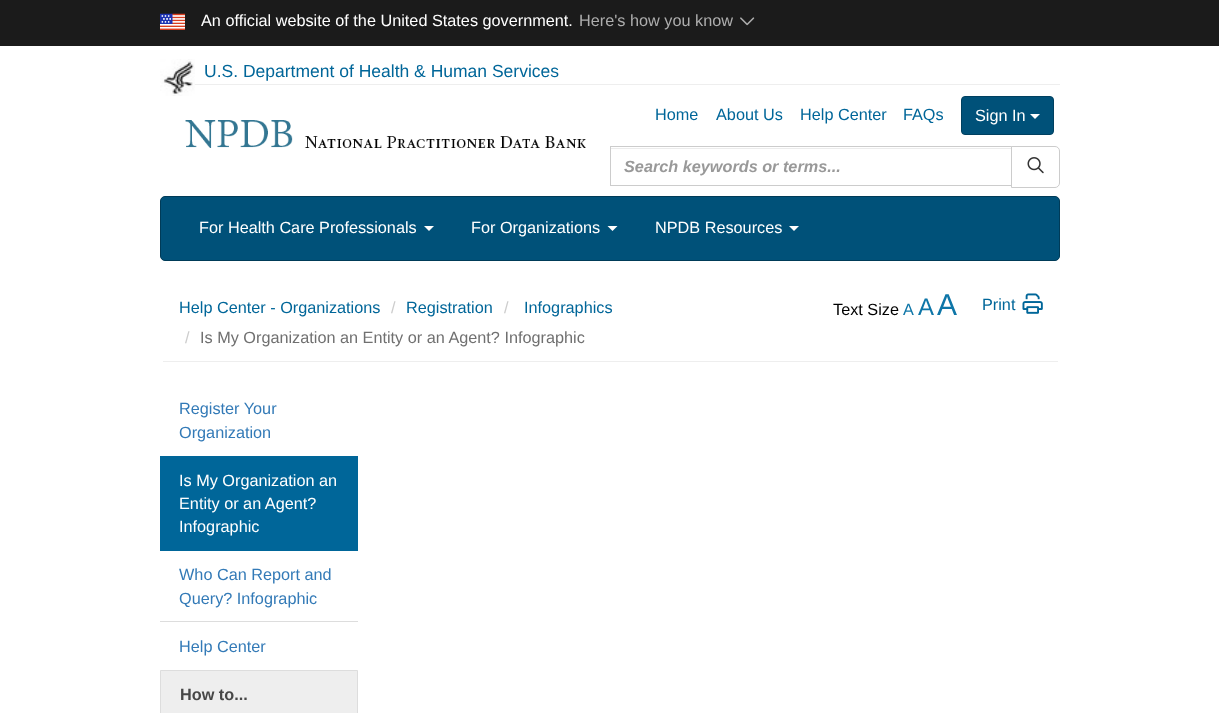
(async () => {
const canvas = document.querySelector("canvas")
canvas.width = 1219
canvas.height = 713
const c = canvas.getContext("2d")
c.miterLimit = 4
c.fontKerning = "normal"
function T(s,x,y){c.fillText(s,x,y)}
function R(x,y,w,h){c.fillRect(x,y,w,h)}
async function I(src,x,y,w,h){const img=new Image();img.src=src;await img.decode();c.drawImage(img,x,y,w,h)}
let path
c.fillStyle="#fff"
R(0,0,1219,713)
c.fillStyle="#1b1b1b"
R(0,0,1219,46)
await I("1.png",160,13,25,17)
c.font="16.25px Liberation Sans"
c.fillStyle="#fff"
T("An official website of the United States government.",201,26)
c.fillStyle="#adadad"
T("Here's how you know",579,26)
await I("2.png",740,17,15,9)
await I("3.png",160,59,35,37)
c.fillStyle="#eee"
R(195,84,865,1)
c.font="17.5px Liberation Sans"
c.fillStyle="#069"
T("U.S. Department of Health & Human Services",204,77)
c.font="16.25px Liberation Sans"
T("Home",655,120)
T("About Us",716,120)
T("Help Center",800,120)
T("FAQs",903,120)
c.fillStyle="#005179"
c.beginPath()
c.roundRect(961.5,96.5,92,38,3.5)
c.fill()
c.strokeStyle="#004060"
c.stroke()
c.fillStyle="#fff"
T("Sign In",975,121)
path = new Path2D("M1030 114h10l-5 5z")
c.fill(path)
await I("4.png",185,120,401,28)
c.fillStyle="#ececec"
R(611,148,400,1)
c.strokeStyle="#ccc"
c.strokeRect(610.5,146.5,402,39)
c.font="italic bold 16.25px Liberation Sans"
c.fillStyle="#999"
T("Search keywords or terms...",624,172)
c.fillStyle="#fff"
c.beginPath()
c.roundRect(1011.5,146.5,48,41,[0,4.5,4.5,0])
c.fill()
c.stroke()
await I("5.png",1027,157,17,17)
c.fillStyle="#005179"
c.beginPath()
c.roundRect(160.5,196.5,899,64,4.5)
c.fill()
c.strokeStyle="#003b58"
c.stroke()
c.font="16.25px Liberation Sans"
c.fillStyle="#fff"
T("For Health Care Professionals",199,233)
path = new Path2D("M424 226h10l-5 5z")
c.fill(path)
T("For Organizations",471,233)
path = new Path2D("M607.5 226h10l-5 5z")
c.fill(path)
T("NPDB Resources",655,233)
path = new Path2D("M789 226h10l-5 5z")
c.fill(path)
c.fillStyle="#eee"
R(163,361,895,1)
c.fillStyle="#069"
T("Help Center - Organizations",179,313)
c.fillStyle="#ccc"
T("/",391,313)
c.fillStyle="#069"
T("Registration",406,313)
c.fillStyle="#ccc"
T("/",504,313)
c.fillStyle="#069"
T("Infographics",524,313)
c.fillStyle="#ccc"
T("/",185,343)
c.fillStyle="#707070"
T("Is My Organization an Entity or an Agent? Infographic",200,343)
c.fillStyle="#000"
T("Text Size",833,315)
c.fillStyle="#0e76a8"
T("A",903,315)
c.font="24px Liberation Sans"
T("A",918,315)
c.font="30px Liberation Sans"
T("A",937,315)
c.font="16.25px Liberation Sans"
c.fillStyle="#069"
T("Print",982,310)
await I("6.png",1022,293,21,21)
c.fillStyle="#337ab7"
T("Register Your",179,414)
T("Organization",179,438)
c.fillStyle="#069"
R(160,456,198,95)
c.fillStyle="#fff"
T("Is My Organization an",179,486)
T("Entity or an Agent?",179,509)
T("Infographic",179,532)
c.fillStyle="#337ab7"
T("Who Can Report and",179,580)
T("Query? Infographic",179,604)
c.fillStyle="#ddd"
R(160,621,198,1)
c.fillStyle="#337ab7"
T("Help Center",179,652)
c.fillStyle="#eee"
c.beginPath()
c.rect(160.5,670.5,197,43)
c.fill()
c.strokeStyle="#ddd"
c.stroke()
c.font="bold 16.25px Liberation Sans"
c.fillStyle="#474747"
T("How to...",180,700)
})()
